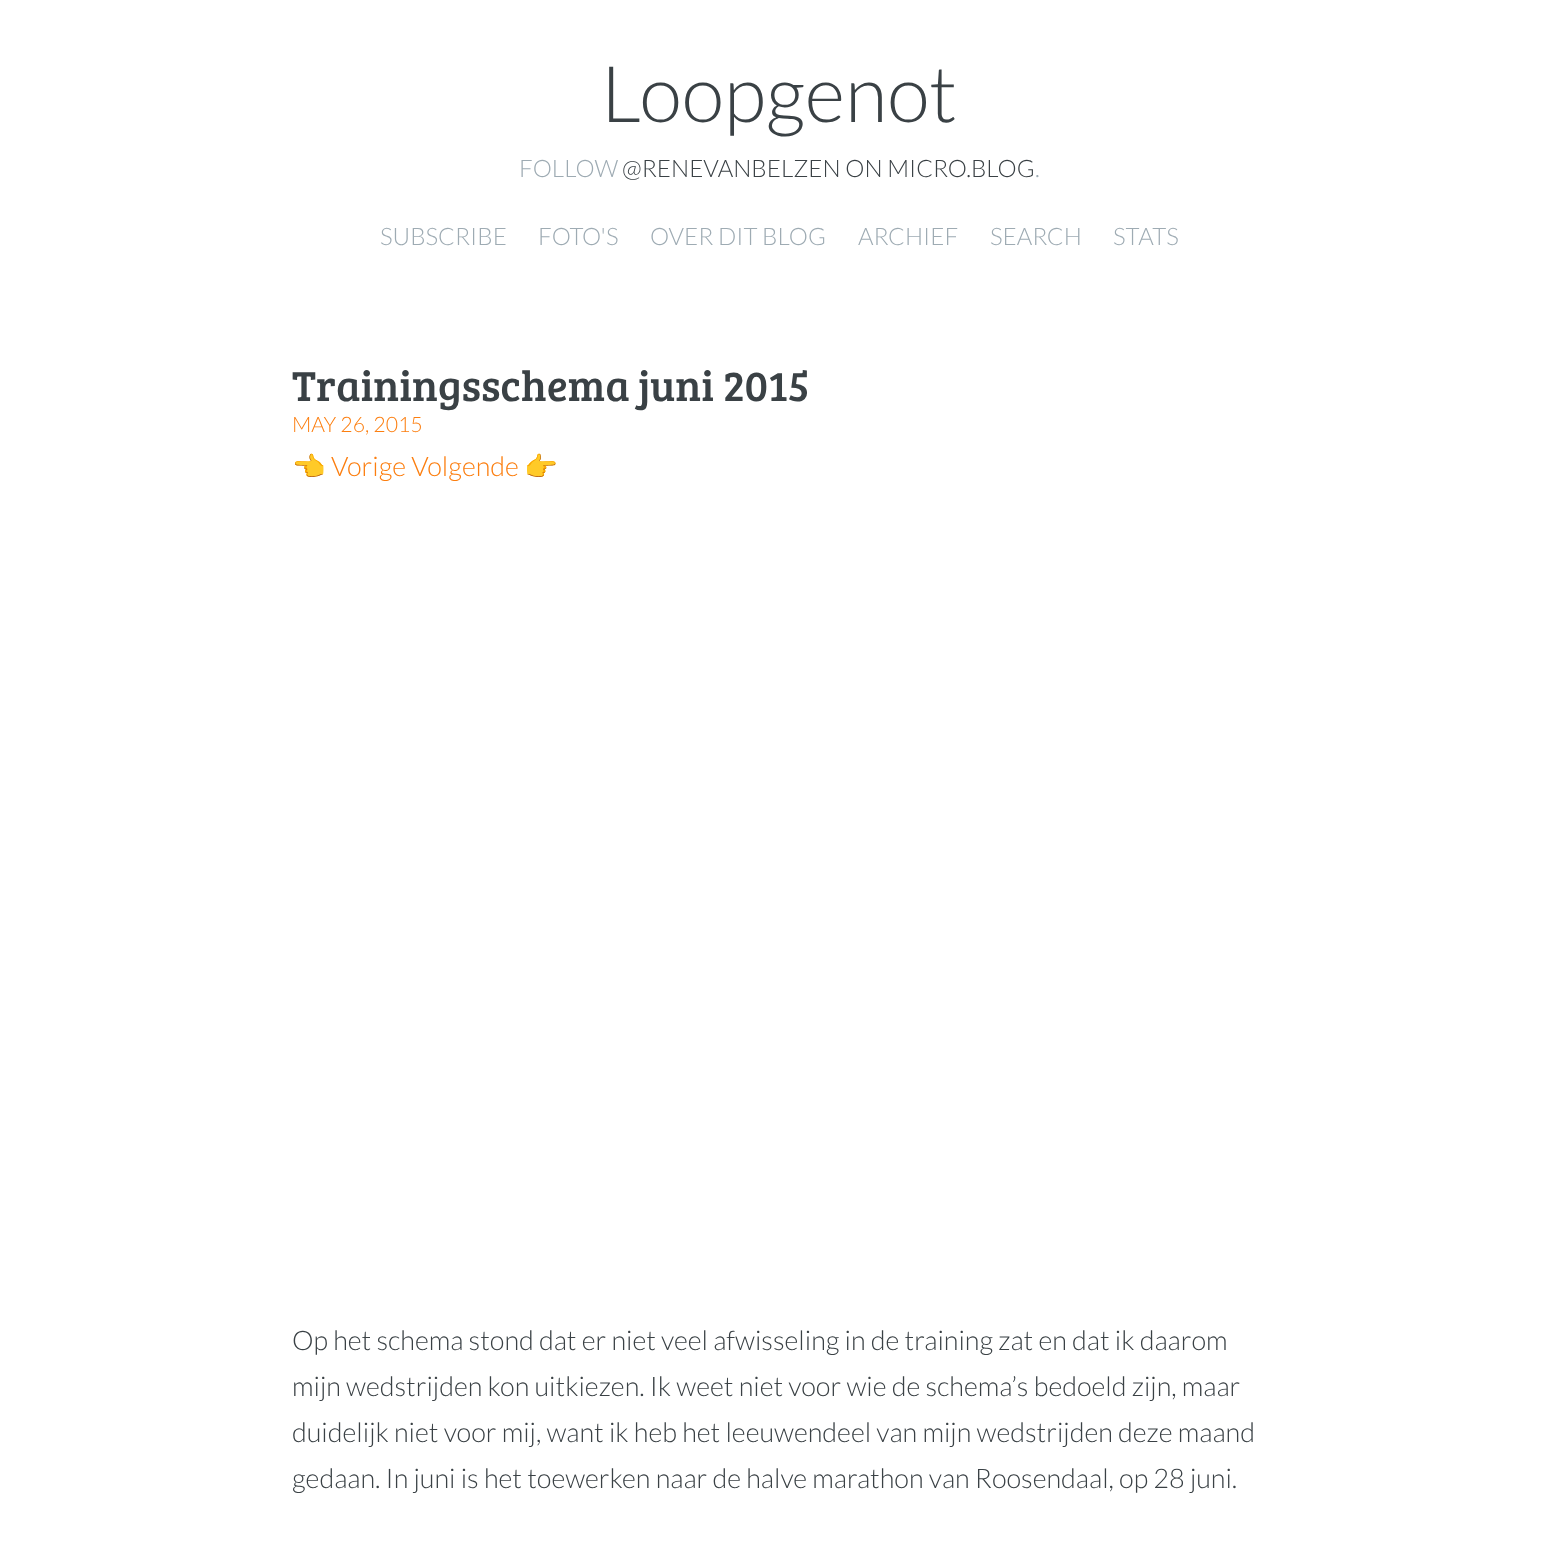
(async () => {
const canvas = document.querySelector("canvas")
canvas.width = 1558
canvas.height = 1553
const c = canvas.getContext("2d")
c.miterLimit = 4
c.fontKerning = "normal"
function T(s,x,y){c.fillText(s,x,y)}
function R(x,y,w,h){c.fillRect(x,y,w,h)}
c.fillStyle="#fff"
R(0,0,1558,1553)
c.font="300 78px Lato"
c.fillStyle="#3a4145"
T("Loopgenot",601,122)
c.font="300 24px Lato"
c.fillStyle="#9eabb3"
T("FOLLOW",519,177)
c.fillStyle="#3a4145"
T("@RENEVANBELZEN ON MICRO.BLOG",622,177)
c.fillStyle="#9eabb3"
T(".",1035,177)
T("SUBSCRIBE",380,245)
T("FOTO'S",538,245)
T("OVER DIT BLOG",650,245)
T("ARCHIEF",858,245)
T("SEARCH",990,245)
T("STATS",1113,245)
c.font="43.25px Bree Serif"
c.fillStyle="#3a4145"
T("Trainingsschema juni 2015",292,401)
c.font="300 21.25px Lato"
c.fillStyle="#fc7e0f"
T("MAY 26, 2015",292,432)
c.font="27px Noto Color Emoji"
T("👈",292,476)
c.font="300 27px Lato"
T("Vorige Volgende",331,476)
c.font="27px Noto Color Emoji"
T("👉",524,476)
c.font="300 27px Lato"
c.fillStyle="#3a4145"
T("Op het schema stond dat er niet veel afwisseling in de training zat en dat ik daarom",292,1350)
T("mijn wedstrijden kon uitkiezen. Ik weet niet voor wie de schema’s bedoeld zijn, maar",292,1396)
T("duidelijk niet voor mij, want ik heb het leeuwendeel van mijn wedstrijden deze maand",292,1442)
T("gedaan. In juni is het toewerken naar de halve marathon van Roosendaal, op 28 juni.",292,1488)
})()
